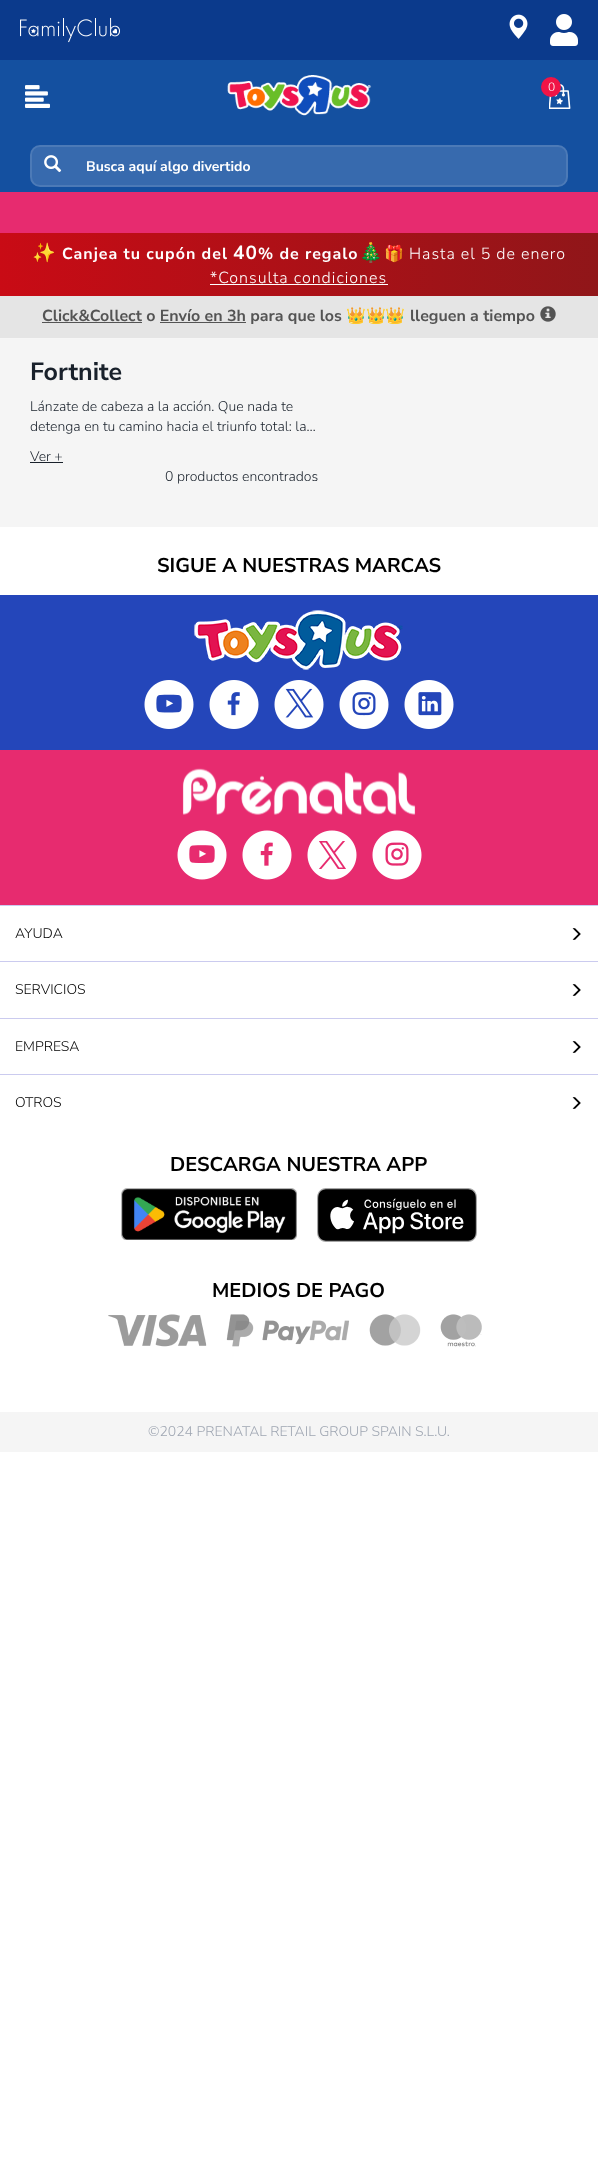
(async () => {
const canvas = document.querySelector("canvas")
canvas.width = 598
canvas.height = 2159
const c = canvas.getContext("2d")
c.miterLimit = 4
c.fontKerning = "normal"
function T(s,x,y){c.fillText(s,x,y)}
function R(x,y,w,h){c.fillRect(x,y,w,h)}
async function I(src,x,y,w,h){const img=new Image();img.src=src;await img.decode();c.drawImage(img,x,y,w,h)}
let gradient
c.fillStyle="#fff"
R(0,0,598,2159)
c.fillStyle="#1450a0"
R(0,60,598,132)
c.fillStyle="#0b3a8c"
R(0,0,598,60)
await I("1.png",20,17,100,26)
await I("2.png",509,14,19,25)
await I("3.png",550,14,28,32)
await I("4.png",25,85,25,23)
await I("5.png",227,75,145,41)
await I("6.png",549,84,22,25)
c.fillStyle="#f01446"
c.beginPath()
c.arc(551,87,10,0,7)
c.fill()
c.font="300 12px Nunito Sans"
c.fillStyle="#fff"
T("0",548,91)
c.fillStyle="#376aae"
c.beginPath()
c.roundRect(31,146,536,40,9)
c.fill()
c.strokeStyle="#4c7ab7"
c.lineWidth=2
c.stroke()
await I("7.png",44,155,18,18)
c.font="bold 14px Nunito Sans"
c.fillStyle="#fff"
T("Busca aquí algo divertido",86,171)
c.fillStyle="#f6f6f6"
R(0,338,598,1)
c.fillStyle="#e72b6f"
R(0,192,598,41)
gradient = c.createLinearGradient(0,265,598,265)
gradient.addColorStop(0,"#c90b15")
gradient.addColorStop(1,"#901619")
c.fillStyle = gradient
R(0,233,598,63)
c.letterSpacing="1px"
c.font="bold 19px Noto Color Emoji"
c.fillStyle="#fff"
T("✨",32,259)
c.font="bold 16px Nunito Sans"
T("Canjea tu cupón del",62,259)
c.font="bold 19px Nunito Sans"
T("40",233,259)
c.font="bold 16px Nunito Sans"
T("% de regalo",258,259)
c.font="bold 19px Noto Color Emoji"
T("🎄",359,259)
c.font="bold 16px Noto Color Emoji"
T("🎁",384,259)
c.font="300 16px Nunito Sans"
T("Hasta el 5 de enero",409,259)
T("*Consulta condiciones",210,283)
R(210,284,178,1)
c.fillStyle="#e5e5e5"
R(0,296,598,42)
c.fillStyle="#545454"
R(42,322,100,1)
c.letterSpacing="0px"
c.font="bold 16px Nunito Sans"
T("Click&Collect o Envío en 3h para que los",42,321)
c.font="bold 16px Noto Color Emoji"
T("👑👑👑",346,321)
c.font="bold 16px Nunito Sans"
T("lleguen a tiempo",410,321)
await I("8.png",540,306,16,16)
R(160,322,86,1)
c.fillStyle="#f5f5f5"
R(0,339,598,188)
c.font="bold 25px Nunito Sans"
c.fillStyle="#19212b"
T("Fortnite",30,380)
c.font="300 14px Nunito Sans"
T("Lánzate de cabeza a la acción. Que nada te",30,411)
T("detenga en tu camino hacia el triunfo total: la…",30,431)
T("Ver +",30,461)
R(30,462,33,1)
T("0 productos encontrados",165,481)
c.font="bold 20px Nunito Sans"
c.fillStyle="#000"
T("SIGUE A NUESTRAS MARCAS",157,572)
c.fillStyle="#2446ba"
R(0,595,598,155)
await I("9.png",194,610,209,60)
await I("10.png",144,680,50,49)
await I("11.png",209,680,50,49)
await I("12.png",274,680,50,49)
await I("13.png",339,680,50,49)
await I("14.png",404,680,50,49)
c.fillStyle="#e72b6f"
R(0,750,598,155)
await I("15.png",182,768,234,47)
await I("16.png",177,830,50,50)
await I("17.png",242,830,50,50)
await I("18.png",307,830,50,50)
await I("19.png",372,830,50,50)
c.fillStyle="#cbcbef"
R(0,905,598,1)
c.font="300 14px Nunito Sans"
c.fillStyle="#000"
T("AYUDA",15,938)
await I("20.png",572,928,9,12)
c.fillStyle="#cbcbef"
R(0,961,598,1)
c.fillStyle="#000"
T("SERVICIOS",15,994)
await I("20.png",572,984,9,12)
c.fillStyle="#cbcbef"
R(0,1018,598,1)
c.fillStyle="#000"
T("EMPRESA",15,1051)
await I("20.png",572,1041,9,12)
c.fillStyle="#cbcbef"
R(0,1074,598,1)
c.fillStyle="#000"
T("OTROS",15,1107)
await I("20.png",572,1097,9,12)
c.font="bold 20px Nunito Sans"
T("DESCARGA NUESTRA APP",170,1171)
await I("21.png",121,1188,176,52)
await I("22.png",317,1188,160,54)
T("MEDIOS DE PAGO",212,1297)
await I("23.png",108,1314,374,33)
c.fillStyle="#f5f5f5"
R(0,1412,598,40)
c.font="300 14px Nunito Sans"
c.fillStyle="#9fa6b2"
T("©2024 PRENATAL RETAIL GROUP SPAIN S.L.U.",148,1436)
})()
